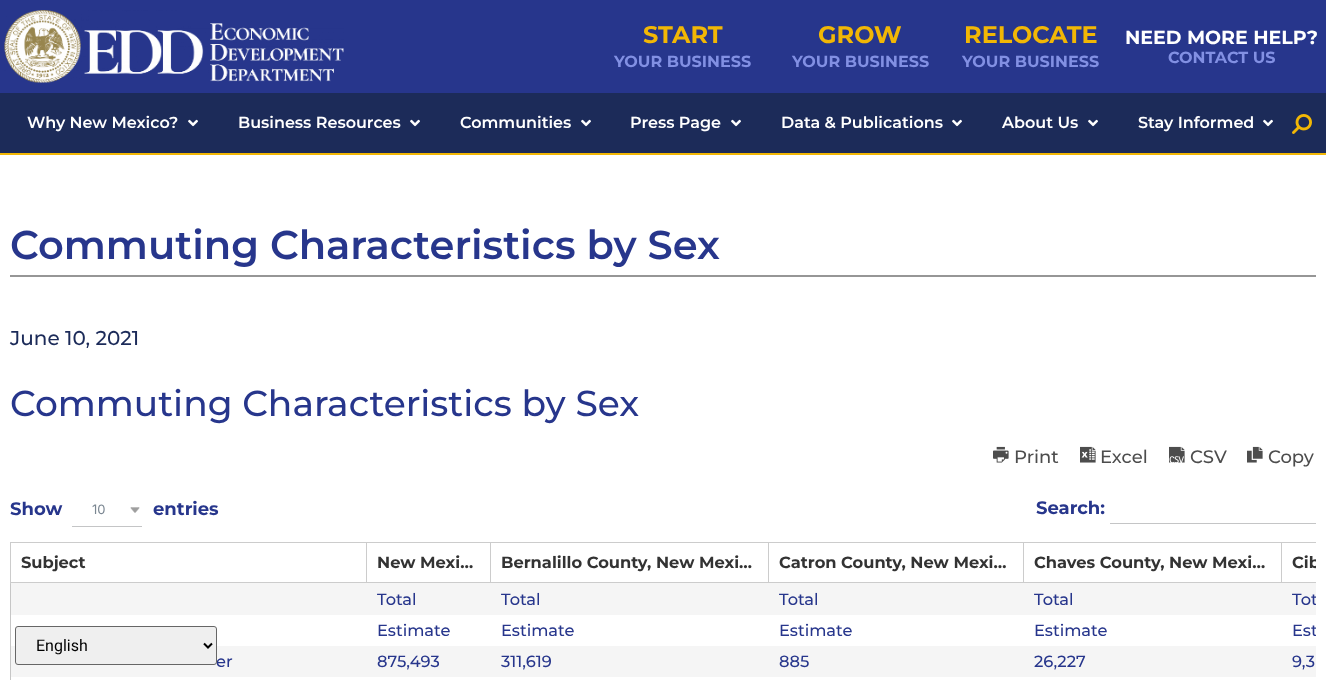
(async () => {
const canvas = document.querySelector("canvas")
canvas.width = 1326
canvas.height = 680
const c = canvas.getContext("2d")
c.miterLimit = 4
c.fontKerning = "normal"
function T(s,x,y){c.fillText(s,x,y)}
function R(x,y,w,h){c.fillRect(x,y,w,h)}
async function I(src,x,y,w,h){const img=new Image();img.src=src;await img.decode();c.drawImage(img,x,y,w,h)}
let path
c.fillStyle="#fff"
R(0,0,1326,680)
c.fillStyle="#27368c"
R(0,0,1326,93)
await I("1.png",4,10,340,73)
c.font="bold 24px Montserrat"
c.fillStyle="#f2b705"
T("START",643,43)
c.font="bold 16px Montserrat"
c.fillStyle="#8290e3"
T("YOUR BUSINESS",614,67)
c.font="bold 24px Montserrat"
c.fillStyle="#f2b705"
T("GROW",818,43)
c.font="bold 16px Montserrat"
c.fillStyle="#8290e3"
T("YOUR BUSINESS",792,67)
c.font="bold 24px Montserrat"
c.fillStyle="#f2b705"
T("RELOCATE",964,43)
c.font="bold 16px Montserrat"
c.fillStyle="#8290e3"
T("YOUR BUSINESS",962,67)
c.font="bold 19px Montserrat"
c.fillStyle="#fff"
T("NEED MORE HELP?",1125,44)
c.font="bold 16px Montserrat"
c.fillStyle="#8290e3"
T("CONTACT US",1168,63)
c.fillStyle="#1c2b59"
R(0,93,1326,60)
c.fillStyle="#f2b705"
R(0,153,1326,2)
c.font="600 16px Montserrat"
c.fillStyle="#fff"
T("Why New Mexico?",27,128)
await I("2.png",188,119,10,8)
T("Business Resources",238,128)
await I("2.png",410,119,10,8)
T("Communities",460,128)
await I("2.png",581,119,10,8)
T("Press Page",630,128)
await I("2.png",731,119,10,8)
T("Data & Publications",781,128)
await I("2.png",952,119,10,8)
T("About Us",1002,128)
await I("2.png",1088,119,10,8)
T("Stay Informed",1138,128)
await I("2.png",1263,119,10,8)
await I("3.png",1292,114,20,20)
c.fillStyle="#969696"
R(10,275,1306,2)
c.font="600 40px Montserrat"
c.fillStyle="#27368c"
T("Commuting Characteristics by Sex",10,259)
c.font="500 20px Montserrat"
c.fillStyle="#1c2b59"
T("June 10, 2021",10,345)
c.font="500 36px Montserrat"
c.fillStyle="#27368c"
T("Commuting Characteristics by Sex",10,416)
await I("4.png",993,446,16,17)
c.font="500 18px Montserrat"
c.fillStyle="#4d4d4d"
T("Print",1014,463)
await I("5.png",1080,446,16,17)
T("Excel",1100,463)
await I("6.png",1169,446,16,17)
T("CSV",1190,463)
await I("7.png",1247,446,16,17)
T("Copy",1268,463)
c.font="bold 18px Montserrat"
c.fillStyle="#27368c"
T("Show",10,515)
c.fillStyle="#c4c5c6"
R(72,526,70,1)
c.font="13px Inter"
c.fillStyle="#7b8792"
T("10",92,514)
await I("8.png",130,507,10,6)
c.font="bold 18px Montserrat"
c.fillStyle="#27368c"
T("entries",153,515)
T("Search:",1036,514)
c.fillStyle="#c4c5c6"
R(1110,523,206,1)
c.fillStyle="#ccc"
R(1281,542,35,1)
R(1281,542,1,41)
R(1023,542,259,1)
R(1023,542,1,41)
R(768,542,256,1)
R(768,542,1,41)
R(490,542,279,1)
R(490,542,1,41)
R(366,542,125,1)
R(366,542,1,41)
R(10,542,357,1)
c.fillStyle="#c6c6c6"
R(10,582,1,98)
c.fillStyle="#ccc"
R(10,542,1,41)
R(366,582,950,1)
R(10,582,358,2)
c.font="bold 16.25px Montserrat"
c.fillStyle="#333"
T("Subject",21,568)
T("New Mexi…",377,568)
T("Bernalillo County, New Mexi…",501,568)
T("Catron County, New Mexi…",779,568)
T("Chaves County, New Mexi…",1034,568)
c.save()
c.beginPath()
c.rect(1283,544,33,37)
c.clip()
T("Cib",1292,568)
c.restore()
c.fillStyle="#f5f5f5"
R(11,583,1305,32)
c.font="500 16.25px Montserrat"
c.fillStyle="#27368c"
T("Total",377,605)
T("Total",501,605)
T("Total",779,605)
T("Total",1034,605)
c.save()
c.beginPath()
c.rect(1283,584,33,30)
c.clip()
T("Tot",1292,605)
c.restore()
T("Estimate",377,636)
T("Estimate",501,636)
T("Estimate",779,636)
T("Estimate",1034,636)
c.save()
c.beginPath()
c.rect(1283,616,33,29)
c.clip()
T("Est",1292,636)
c.restore()
c.fillStyle="#f5f5f5"
R(11,646,1305,31)
c.fillStyle="#27368c"
T("er",216,667)
T("875,493",377,667)
T("311,619",501,667)
T("885",779,667)
T("26,227",1034,667)
T("9,3",1292,667)
c.fillStyle="#efefef"
c.beginPath()
c.roundRect(15.5,626.5,201,38,2.5)
c.fill()
c.strokeStyle="#666"
c.stroke()
path = new Path2D("M204 643.5l4 4l4-4")
c.strokeStyle="#000"
c.lineWidth=2
c.stroke(path)
c.font="16px Roboto"
c.fillStyle="#000"
T("English",36,651)
})()
